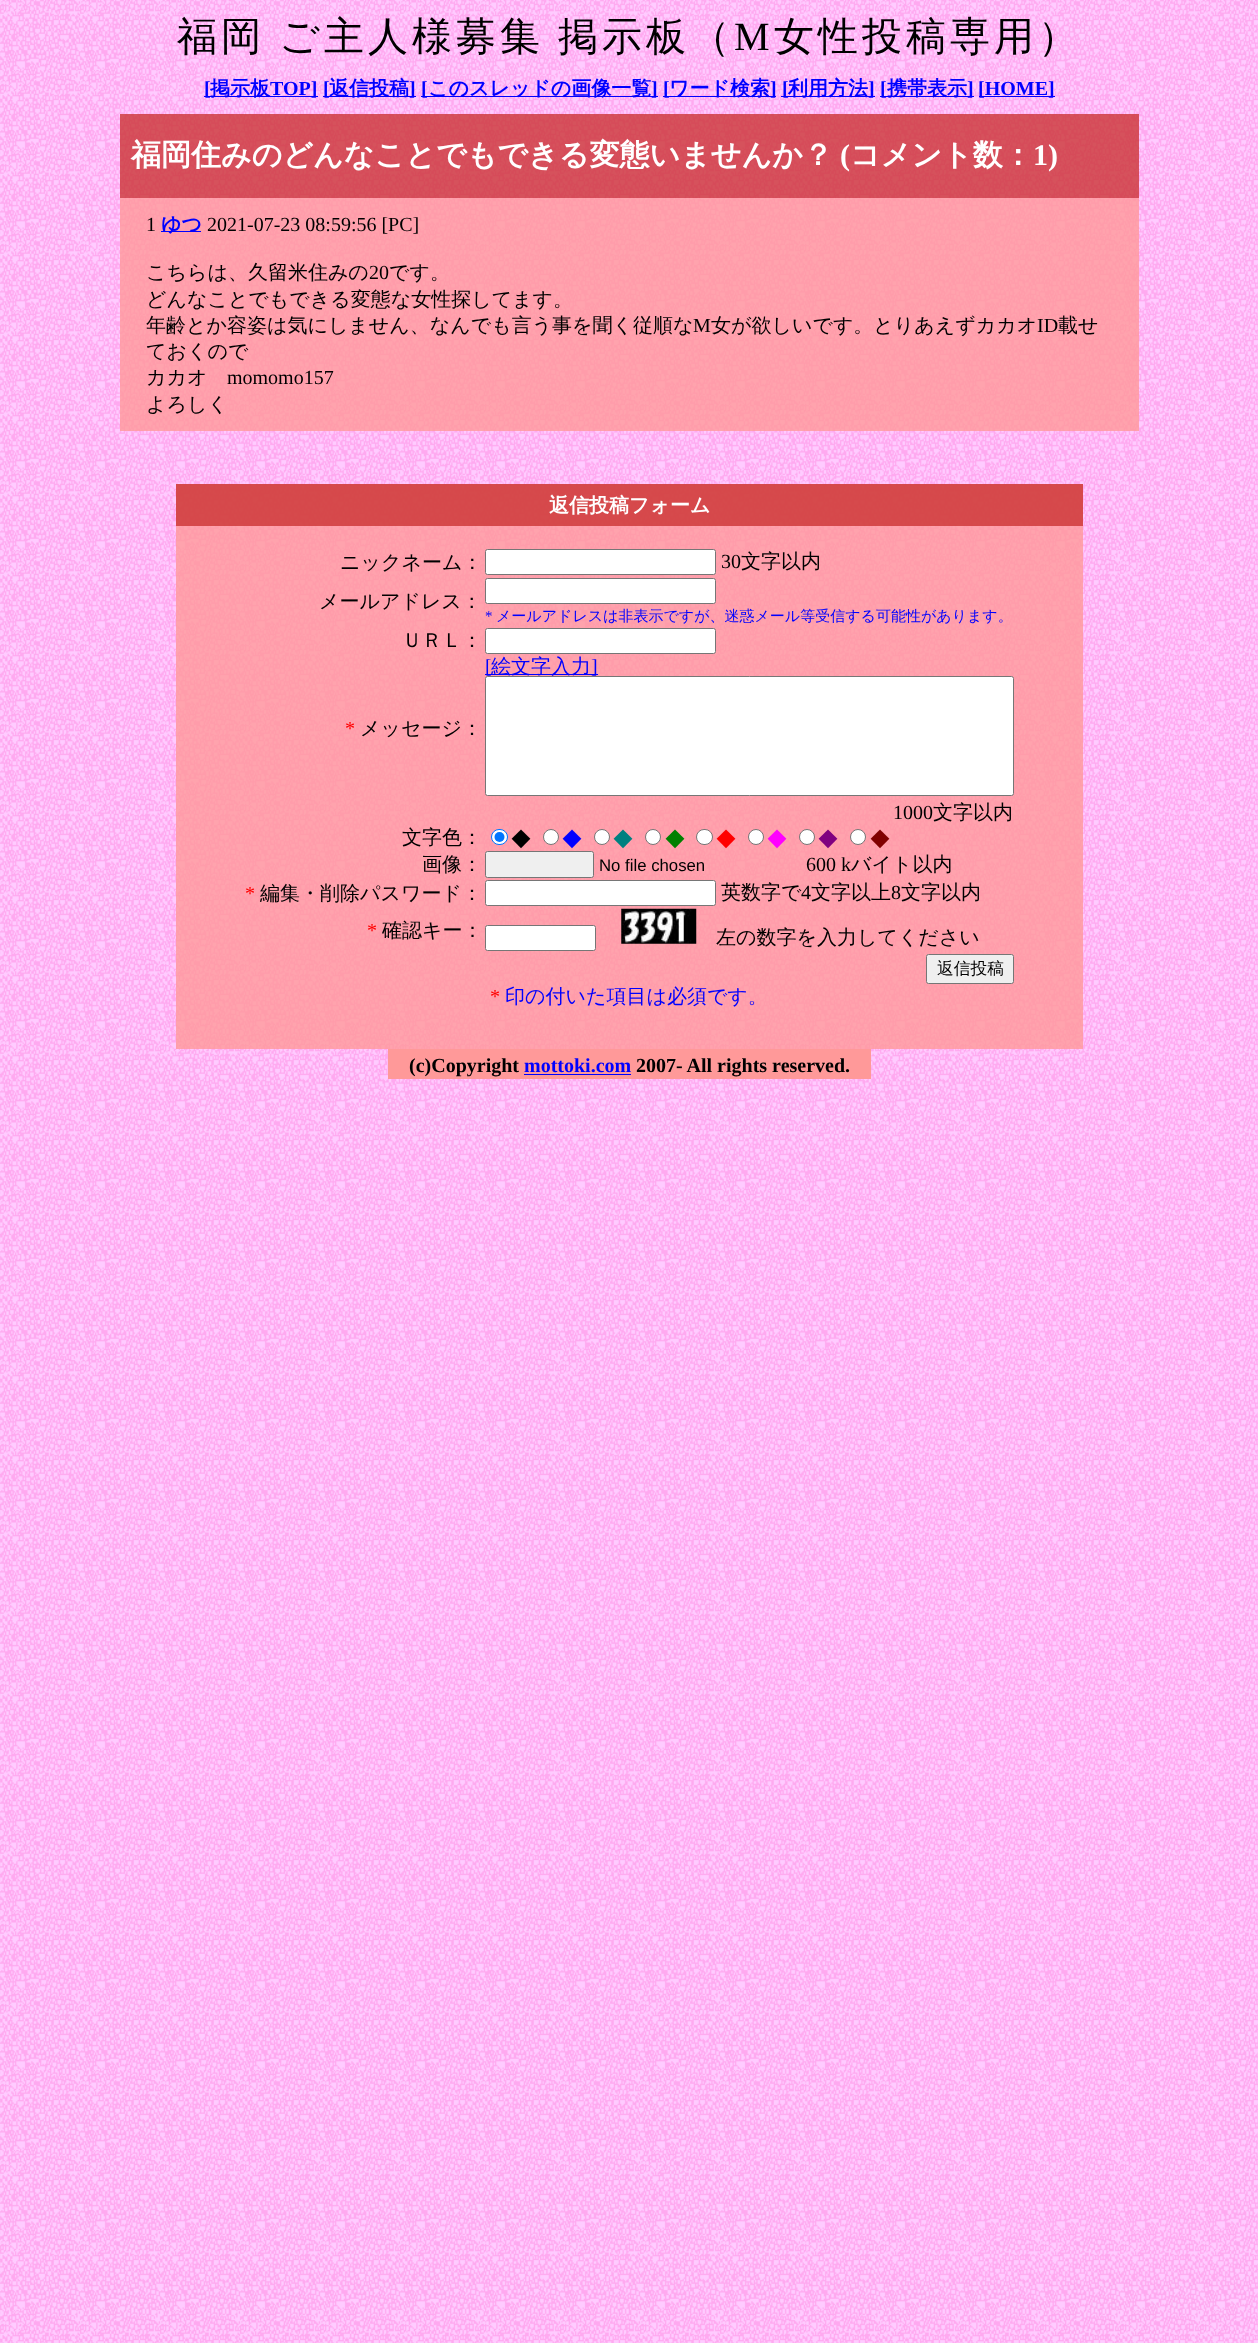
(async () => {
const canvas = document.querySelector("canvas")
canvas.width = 1258
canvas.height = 2343
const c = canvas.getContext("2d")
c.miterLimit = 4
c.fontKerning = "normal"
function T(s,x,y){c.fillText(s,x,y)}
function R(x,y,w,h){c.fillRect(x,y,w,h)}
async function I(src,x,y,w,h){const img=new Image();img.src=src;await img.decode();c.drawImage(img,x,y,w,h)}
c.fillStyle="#fff"
R(0,0,1258,2343)
await I("1.png",0,0,1258,2343)
c.letterSpacing="4px"
c.wordSpacing="-2px"
c.font="500 40px WenQuanYi Zen Hei"
c.fillStyle="#000"
T("福岡 ご主人様募集 掲示板（",177,50)
c.wordSpacing="0px"
c.font="40px Liberation Serif"
T("M",734,50)
c.font="500 40px WenQuanYi Zen Hei"
T("女性投稿専用）",774,50)
c.fillStyle="#00f"
R(204,96,114,1)
c.letterSpacing="0px"
c.font="bold 20px Liberation Serif"
T("[",204,95)
c.font="bold 20px WenQuanYi Zen Hei"
T("掲示板",210,95)
c.font="bold 20px Liberation Serif"
T("TOP]",270,95)
R(323,96,93,1)
T("[",323,95)
c.font="bold 20px WenQuanYi Zen Hei"
T("返信投稿",329,95)
c.font="bold 20px Liberation Serif"
T("]",409,95)
R(421,96,237,1)
T("[",421,95)
c.font="bold 20px WenQuanYi Zen Hei"
T("このスレッドの画像一覧",428,95)
c.font="bold 20px Liberation Serif"
T("]",651,95)
R(663,96,113,1)
T("[",663,95)
c.font="bold 20px WenQuanYi Zen Hei"
T("ワード検索",669,95)
c.font="bold 20px Liberation Serif"
T("]",770,95)
R(781,96,94,1)
T("[",782,95)
c.font="bold 20px WenQuanYi Zen Hei"
T("利用方法",788,95)
c.font="bold 20px Liberation Serif"
T("]",868,95)
R(880,96,94,1)
T("[",880,95)
c.font="bold 20px WenQuanYi Zen Hei"
T("携帯表示",887,95)
c.font="bold 20px Liberation Serif"
T("]",967,95)
R(979,96,76,1)
T("[HOME]",978,95)
c.fillStyle="#cc3333cc"
R(120,114,1019,84)
c.font="bold 30px WenQuanYi Zen Hei"
c.fillStyle="#fff"
T("福岡住みのどんなことでもできる変態いませんか？",131,165)
c.font="bold 30px Liberation Serif"
T("(",840,165)
c.font="bold 30px WenQuanYi Zen Hei"
T("コメント数：",850,165)
c.font="bold 30px Liberation Serif"
T("1)",1033,165)
c.fillStyle="#ff9999cc"
R(120,198,1019,233)
c.font="20px Liberation Serif"
c.fillStyle="#000"
T("1",146,231)
c.fillStyle="#00f"
R(161,231,40,1)
c.font="bold 20px WenQuanYi Zen Hei"
T("ゆつ",161,231)
c.font="20px Liberation Serif"
c.fillStyle="#000"
T("2021-07-23 08:59:56 [PC]",207,231)
c.font="500 20px WenQuanYi Zen Hei"
T("こちらは、久留米住みの",146,279)
c.font="20px Liberation Serif"
T("20",369,279)
c.font="500 20px WenQuanYi Zen Hei"
T("です。",389,279)
T("どんなことでもできる変態な女性探してます。",146,306)
T("年齢とか容姿は気にしません、なんでも言う事を聞く従順な",146,332)
c.font="20px Liberation Serif"
T("M",693,332)
c.font="500 20px WenQuanYi Zen Hei"
T("女が欲しいです。とりあえずカカオ",711,332)
c.font="20px Liberation Serif"
T("ID",1037,332)
c.font="500 20px WenQuanYi Zen Hei"
T("載せ",1058,332)
T("ておくので",146,358)
T("カカオ",146,384)
c.font="20px Liberation Serif"
T("momomo157",227,384)
c.font="500 20px WenQuanYi Zen Hei"
T("よろしく",146,411)
c.fillStyle="#ff9999cc"
R(176,484,907,565)
c.fillStyle="#cc3333cc"
R(176,484,907,42)
c.font="bold 20px WenQuanYi Zen Hei"
c.fillStyle="#fff"
T("返信投稿フォーム",549,512)
c.font="500 20px WenQuanYi Zen Hei"
c.fillStyle="#000"
T("ニックネーム：",340,569)
c.fillStyle="#fff"
c.beginPath()
c.roundRect(485.5,549.5,230,25,2)
c.fill()
c.strokeStyle="#767676"
c.stroke()
c.font="20px Liberation Serif"
c.fillStyle="#000"
T("30",721,568)
c.font="500 20px WenQuanYi Zen Hei"
T("文字以内",741,568)
T("メールアドレス：",319,608)
c.fillStyle="#fff"
c.beginPath()
c.roundRect(485.5,578.5,230,25,2)
c.fill()
c.stroke()
c.font="15px Liberation Serif"
c.fillStyle="#00f"
T("*",485,621)
c.font="500 15px WenQuanYi Zen Hei"
T("メールアドレスは非表示ですが、迷惑メール等受信する可能性があります。",496,621)
c.font="500 20px WenQuanYi Zen Hei"
c.fillStyle="#000"
T("ＵＲＬ：",402,647)
c.fillStyle="#fff"
c.beginPath()
c.roundRect(485.5,628.5,230,25,2)
c.fill()
c.stroke()
c.fillStyle="#00f"
R(485,674,113,1)
c.font="20px Liberation Serif"
T("[",485,673)
c.font="500 20px WenQuanYi Zen Hei"
T("絵文字入力",491,673)
c.font="20px Liberation Serif"
T("]",591,673)
c.fillStyle="#fff"
c.beginPath()
c.roundRect(485.5,676.5,528,119,2)
c.fill()
c.stroke()
c.fillStyle="#f00"
T("*",345,735)
c.font="500 20px WenQuanYi Zen Hei"
c.fillStyle="#000"
T("メッセージ：",360,735)
c.font="20px Liberation Serif"
T("1000",893,819)
c.font="500 20px WenQuanYi Zen Hei"
T("文字以内",933,819)
T("文字色：",402,844)
c.fillStyle="#fff"
c.beginPath()
c.roundRect(491.5,829.5,16,15,7.5)
c.fill()
c.strokeStyle="#0075ff"
c.stroke()
c.fillStyle="#0075ff"
c.beginPath()
c.arc(499.5,837,5,0,7)
c.fill()
c.fillStyle="#000"
T("◆",511,846)
c.fillStyle="#fff"
c.beginPath()
c.arc(551,837,7.5,0,7)
c.fill()
c.strokeStyle="#767676"
c.stroke()
c.fillStyle="#00f"
T("◆",562,846)
c.fillStyle="#fff"
c.beginPath()
c.arc(602,837,7.5,0,7)
c.fill()
c.stroke()
c.fillStyle="#008080"
T("◆",613,846)
c.fillStyle="#fff"
c.beginPath()
c.arc(653,837,7.5,0,7)
c.fill()
c.stroke()
c.fillStyle="#008000"
T("◆",665,846)
c.fillStyle="#fff"
c.beginPath()
c.roundRect(696.5,829.5,16,15,7.5)
c.fill()
c.stroke()
c.fillStyle="#f00"
T("◆",716,846)
c.fillStyle="#fff"
c.beginPath()
c.arc(756,837,7.5,0,7)
c.fill()
c.stroke()
c.fillStyle="#f0f"
T("◆",767,846)
c.fillStyle="#fff"
c.beginPath()
c.arc(807,837,7.5,0,7)
c.fill()
c.stroke()
c.fillStyle="#800080"
T("◆",818,846)
c.fillStyle="#fff"
c.beginPath()
c.arc(858,837,7.5,0,7)
c.fill()
c.stroke()
c.fillStyle="#800000"
T("◆",870,846)
c.fillStyle="#000"
T("画像：",422,871)
c.fillStyle="#efefef"
c.beginPath()
c.roundRect(485.5,851.5,108,26,2)
c.fill()
c.stroke()
c.font="16.75px Liberation Sans"
c.fillStyle="#000"
T("No file chosen",599,871)
c.font="20px Liberation Serif"
T("600 k",806,871)
c.font="500 20px WenQuanYi Zen Hei"
T("バイト以内",851,871)
c.font="20px Liberation Serif"
c.fillStyle="#f00"
T("*",245,900)
c.font="500 20px WenQuanYi Zen Hei"
c.fillStyle="#000"
T("編集・削除パスワード：",260,900)
c.fillStyle="#fff"
c.beginPath()
c.roundRect(485.5,880.5,230,25,2)
c.fill()
c.stroke()
c.fillStyle="#000"
T("英数字で",721,899)
c.font="20px Liberation Serif"
T("4",801,899)
c.font="500 20px WenQuanYi Zen Hei"
T("文字以上",811,899)
c.font="20px Liberation Serif"
T("8",891,899)
c.font="500 20px WenQuanYi Zen Hei"
T("文字以内",901,899)
c.font="20px Liberation Serif"
c.fillStyle="#f00"
T("*",367,937)
c.font="500 20px WenQuanYi Zen Hei"
c.fillStyle="#000"
T("確認キー：",382,937)
c.fillStyle="#fff"
c.beginPath()
c.roundRect(485.5,925.5,110,25,2)
c.fill()
c.stroke()
await I("2.png",621,908,76,36)
c.fillStyle="#000"
T("左の数字を入力してください",716,944)
c.fillStyle="#efefef"
c.beginPath()
c.roundRect(926.5,954.5,87,29,2)
c.fill()
c.stroke()
c.font="500 16.75px WenQuanYi Zen Hei"
c.fillStyle="#000"
T("返信投稿",937,974)
c.font="20px Liberation Serif"
c.fillStyle="#f00"
T("*",490,1003)
c.font="500 20px WenQuanYi Zen Hei"
c.fillStyle="#00f"
T("印の付いた項目は必須です。",505,1003)
c.fillStyle="#f99"
R(388,1049,483,30)
c.font="bold 20px Liberation Serif"
c.fillStyle="#000"
T("(c)Copyright",409,1072)
c.fillStyle="#00f"
T("mottoki.com",524,1072)
R(524,1074,107,1)
c.fillStyle="#000"
T("2007- All rights reserved.",636,1072)
})()
